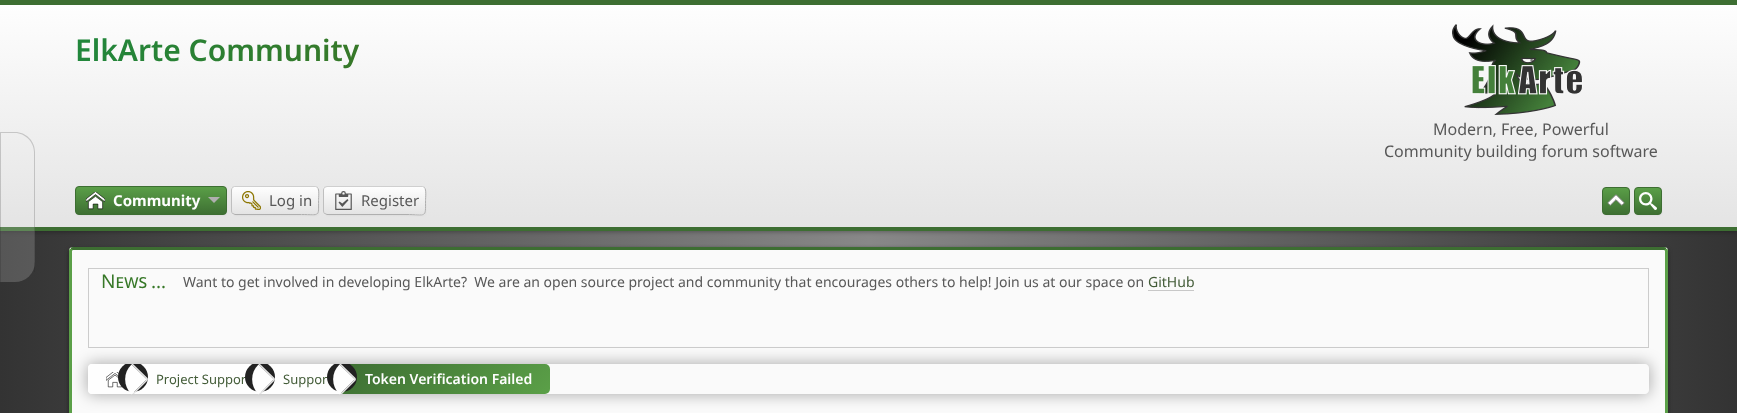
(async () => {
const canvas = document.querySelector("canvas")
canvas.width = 1737
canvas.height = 413
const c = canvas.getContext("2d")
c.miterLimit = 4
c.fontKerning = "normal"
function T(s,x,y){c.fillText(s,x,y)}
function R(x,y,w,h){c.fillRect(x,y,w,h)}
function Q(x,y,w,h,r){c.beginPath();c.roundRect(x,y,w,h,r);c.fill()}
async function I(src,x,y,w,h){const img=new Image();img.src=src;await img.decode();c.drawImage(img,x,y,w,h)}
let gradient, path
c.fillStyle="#fff"
R(0,0,1737,413)
gradient = c.createLinearGradient(0,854,1737,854)
gradient.addColorStop(0,"#333")
gradient.addColorStop(.5,"#888")
gradient.addColorStop(1,"#333")
c.fillStyle = gradient
R(0,231,1737,182)
c.fillStyle="#0000004d"
c.filter="blur(2px)"
c.beginPath()
c.rect(0,1,1737,231)
c.fill()
c.filter="none"
gradient = c.createLinearGradient(869,4,869,227)
gradient.addColorStop(0,"#fefefe")
gradient.addColorStop(1,"#e4e4e4")
c.fillStyle = gradient
R(0,5,1737,222)
c.fillStyle="#22222233"
path = new Path2D("M0 132h15c11 0 20 9 20 20v55h-35zm1 1h14c10 0 19 9 19 19v55h-33z")
c.fill(path,"evenodd")
c.fillStyle="#3d6e32"
R(0,0,1737,5)
R(0,227,1737,4)
c.font="600 30px Noto Sans"
gradient = c.createLinearGradient(75,37,360,62)
gradient.addColorStop(0,"#21873c")
gradient.addColorStop(1,"#377828")
c.fillStyle = gradient
T("ElkArte Community",75,61)
await I("1.png",1452,24,131,91)
c.font="16px Noto Sans"
c.fillStyle="#585858"
T("Modern, Free, Powerful",1433,135)
T("Community building forum software",1384,157)
c.fillStyle="#b3b3b354"
c.filter="blur(1px)"
c.beginPath()
c.roundRect(78,190,148,25,2)
c.fill()
c.filter="none"
c.fillStyle="#b3b3b34a"
c.filter="blur(0.5px)"
c.beginPath()
c.roundRect(76,188,150,27,3)
c.fill()
c.filter="none"
c.fillStyle="#b3b3b340"
c.filter="blur(0.5px)"
c.beginPath()
c.roundRect(75,186,152,29,4)
c.fill()
c.filter="none"
gradient = c.createLinearGradient(151,186,151,215)
gradient.addColorStop(0,"#5ba048")
gradient.addColorStop(1,"#3d6e32")
c.fillStyle = gradient
c.beginPath()
c.roundRect(75.5,186.5,151,28,3.5)
c.fill()
c.strokeStyle="#3d6e32"
c.stroke()
await I("2.png",86,192,19,18)
c.font="bold 15px Noto Sans"
c.fillStyle="#fefefe"
T("Community",113,206)
c.fillStyle="#afafaf"
path = new Path2D("M208 197h12l-6 6z")
c.fill(path)
c.fillStyle="#b3b3b354"
c.filter="blur(1px)"
c.beginPath()
c.roundRect(234,190,84,25,2)
c.fill()
c.filter="none"
c.fillStyle="#b3b3b34a"
c.filter="blur(0.5px)"
c.beginPath()
c.roundRect(232,188,86,27,3)
c.fill()
c.filter="none"
c.fillStyle="#b3b3b340"
c.filter="blur(0.5px)"
c.beginPath()
c.roundRect(231,186,88,29,4)
c.fill()
c.filter="none"
c.save()
c.beginPath()
c.roundRect(231,186,88,29,4)
c.clip()
gradient = c.createLinearGradient(275,160,275,187)
gradient.addColorStop(0,"#fefefe")
gradient.addColorStop(1,"#e4e4e4")
c.fillStyle = gradient
R(231,186,88,1)
gradient = c.createLinearGradient(275,187,275,214)
gradient.addColorStop(0,"#fefefe")
gradient.addColorStop(1,"#e4e4e4")
c.fillStyle = gradient
R(231,187,88,27)
gradient = c.createLinearGradient(275,214,275,241)
gradient.addColorStop(0,"#fefefe")
gradient.addColorStop(1,"#e4e4e4")
c.fillStyle = gradient
R(231,214,88,1)
c.restore()
path = new Path2D("M232.5 187.5l2-1h81l2 1")
c.strokeStyle="#cfcfcf"
c.stroke(path)
path = new Path2D("M317.5 187.5c2 2 1 10.5 1 13c0 17 2 14-17 14h-66.5l-2.5-1")
c.strokeStyle="#afafaf"
c.stroke(path)
path = new Path2D("M232.5 213.5c-.5-.5-1-1.5-1-2.5v-21c0-1 .5-2 1-2.5")
c.strokeStyle="#bfbfbf"
c.stroke(path)
await I("3.png",242,191,19,19)
c.font="15px Noto Sans"
c.fillStyle="#585858"
T("Log in",269,206)
c.fillStyle="#b3b3b354"
c.filter="blur(1px)"
c.beginPath()
c.roundRect(326,190,99,25,2)
c.fill()
c.filter="none"
c.fillStyle="#b3b3b34a"
c.filter="blur(0.5px)"
c.beginPath()
c.roundRect(324,188,101,27,3)
c.fill()
c.filter="none"
c.fillStyle="#b3b3b340"
c.filter="blur(0.5px)"
c.beginPath()
c.roundRect(323,186,103,29,4)
c.fill()
c.filter="none"
c.save()
c.beginPath()
c.roundRect(323,186,103,29,4)
c.clip()
gradient = c.createLinearGradient(375,160,375,187)
gradient.addColorStop(0,"#fefefe")
gradient.addColorStop(1,"#e4e4e4")
c.fillStyle = gradient
R(323,186,103,1)
gradient = c.createLinearGradient(375,187,375,214)
gradient.addColorStop(0,"#fefefe")
gradient.addColorStop(1,"#e4e4e4")
c.fillStyle = gradient
R(323,187,103,27)
gradient = c.createLinearGradient(375,214,375,241)
gradient.addColorStop(0,"#fefefe")
gradient.addColorStop(1,"#e4e4e4")
c.fillStyle = gradient
R(323,214,103,1)
c.restore()
path = new Path2D("M324.5 187.5l2.5-1h95.5l2 1")
c.strokeStyle="#cfcfcf"
c.stroke(path)
path = new Path2D("M424.5 187.5c2 2 1 10.5 1 13c0 18 1.5 14-19.5 14h-79l-2.5-1")
c.strokeStyle="#afafaf"
c.stroke(path)
path = new Path2D("M324.5 213.5c-.5-.5-1-1.5-1-2.5v-21c0-1 .5-2 1-2.5")
c.strokeStyle="#bfbfbf"
c.stroke(path)
await I("4.png",335,191,17,19)
c.fillStyle="#585858"
T("Register",361,206)
c.fillStyle="#b3b3b354"
c.filter="blur(1px)"
c.beginPath()
c.roundRect(1605,191,24,24,2)
c.fill()
c.filter="none"
c.fillStyle="#b3b3b34a"
c.filter="blur(0.5px)"
c.beginPath()
c.roundRect(1603,189,26,26,3)
c.fill()
c.filter="none"
c.fillStyle="#b3b3b340"
c.filter="blur(0.5px)"
c.beginPath()
c.roundRect(1602,187,28,28,4)
c.fill()
c.filter="none"
gradient = c.createLinearGradient(1616,187,1616,215)
gradient.addColorStop(0,"#5ba048")
gradient.addColorStop(1,"#3d6e32")
c.fillStyle = gradient
c.beginPath()
c.roundRect(1602.5,187.5,27,27,3.5)
c.fill()
c.strokeStyle="#3d6e32"
c.stroke()
await I("5.png",1607,194,18,12)
c.fillStyle="#b3b3b354"
c.filter="blur(1px)"
c.beginPath()
c.roundRect(1637,191,24,24,2)
c.fill()
c.filter="none"
c.fillStyle="#b3b3b34a"
c.filter="blur(0.5px)"
c.beginPath()
c.roundRect(1635,189,26,26,3)
c.fill()
c.filter="none"
c.fillStyle="#b3b3b340"
c.filter="blur(0.5px)"
c.beginPath()
c.roundRect(1634,187,28,28,4)
c.fill()
c.filter="none"
gradient = c.createLinearGradient(1648,187,1648,215)
gradient.addColorStop(0,"#5ba048")
gradient.addColorStop(1,"#3d6e32")
c.fillStyle = gradient
c.beginPath()
c.roundRect(1634.5,187.5,27,27,3.5)
c.fill()
c.stroke()
await I("6.png",1639,192,18,18)
c.fillStyle="#e4e4e433"
c.beginPath()
c.roundRect(0,207,35,75,[0,0,20,0])
c.fill()
c.fillStyle="#22222233"
R(34,207,1,65)
R(0,207,1,75)
c.fillStyle="#222"
c.filter="blur(2px)"
c.beginPath()
c.roundRect(69,249,1599,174,4)
c.fill()
c.filter="none"
c.fillStyle="#fafafa"
Q(69,247,1599,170,4)
path = new Path2D("M71 249l2-.5h1591l2 .5")
c.lineWidth=3
c.stroke(path)
path = new Path2D("M1666 249l.5 2v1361l-.5 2")
c.strokeStyle="#5ba048"
c.stroke(path)
path = new Path2D("M71 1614l-.5-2v-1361l.5-2")
c.stroke(path)
c.strokeStyle="#ccc"
c.lineWidth=1
c.strokeRect(88.5,268.5,1560,79)
c.font="19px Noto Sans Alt"
c.fillStyle="#377828"
T("News",101,288)
c.font="19px Noto Sans"
T("…",151,288)
c.font="14px Noto Sans"
c.fillStyle="#585858"
T("Want to get involved in developing ElkArte?  We are an open source project and community that encourages others to help! Join us at our space on",183,287)
c.fillStyle="#435c38"
T("GitHub",1148,287)
c.fillStyle="#c8c8c8"
R(1148,290,46,1)
c.save()
path = new Path2D("M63 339h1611v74h-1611zm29 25h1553c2 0 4 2 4 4v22c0 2-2 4-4 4h-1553c-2 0-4-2-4-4v-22c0-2 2-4 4-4z")
c.clip(path,"evenodd")
c.fillStyle="#0000004d"
c.filter="blur(7.5px)"
c.beginPath()
c.roundRect(87,363,1563,32,5)
c.fill()
c.filter="none"
c.restore()
c.fillStyle="#fefefe"
c.beginPath()
c.roundRect(88,364,44,30,[4,0,0,4])
c.fill()
await I("7.png",106,372,18,16)
R(132,364,209,30)
c.save()
c.beginPath()
c.roundRect(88,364,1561,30,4)
c.clip()
c.fillStyle="#222"
c.filter="blur(0.5px)"
c.beginPath()
c.roundRect(118,362,30,30,30)
c.fill()
c.filter="none"
c.restore()
c.fillStyle="#e4e4e4"
path = new Path2D("M131 394l-.5-1zm.5-29.5l14.5 14c0 .5 0 1 0 1.5l-14 14h2l13.5-13.5c.5-.5 .5-1.5 0-2.5l-14.5-14h-1z")
c.fill(path,"evenodd")
c.fillStyle="#fefefe"
path = new Path2D("M131.5 364.5l14.5 14c0 .5 0 1 0 1.5l-14.5 14.5c-8.5-8.5-8.5-22 0-30z")
c.fill(path)
c.font="13px Noto Sans"
c.fillStyle="#435c38"
T("Project Support",156,384)
c.save()
c.beginPath()
c.roundRect(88,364,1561,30,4)
c.clip()
c.fillStyle="#222"
c.filter="blur(0.5px)"
c.beginPath()
c.roundRect(245,362,30,30,30)
c.fill()
c.filter="none"
c.restore()
c.fillStyle="#e4e4e4"
path = new Path2D("M258 394h0zm.5-29.5l14.5 14c0 .5 0 1 0 1.5l-14.5 14h2.5l13.5-13.5c.5-.5 .5-1.5 0-2.5l-14.5-14h-1z")
c.fill(path,"evenodd")
c.fillStyle="#fefefe"
path = new Path2D("M258.5 364.5l14.5 14c0 .5 0 1 0 1.5l-14.5 14.5c-8.5-8.5-8.5-22 0-30z")
c.fill(path)
c.fillStyle="#435c38"
T("Support",283,384)
gradient = c.createLinearGradient(386,319,505,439)
gradient.addColorStop(0,"#3d6e32")
gradient.addColorStop(1,"#5ba048")
c.fillStyle = gradient
c.beginPath()
c.roundRect(341,364,209,30,[0,5,5,0])
c.fill()
c.save()
c.beginPath()
c.roundRect(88,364,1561,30,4)
c.clip()
c.fillStyle="#222"
c.filter="blur(0.5px)"
c.beginPath()
c.roundRect(327,362,30,30,30)
c.fill()
c.filter="none"
c.restore()
c.fillStyle="#e4e4e4"
path = new Path2D("M339 394v-.5zm.5-29.5l14.5 14c0 .5 0 1 0 1.5l-14 14h2l13.5-13.5c.5-.5 .5-1.5 0-2.5l-14.5-14h-1z")
c.fill(path,"evenodd")
c.fillStyle="#fefefe"
path = new Path2D("M339.5 364.5l14.5 14c0 .5 0 1 0 1.5l-14.5 14.5c-8.5-8.5-8.5-22 0-30z")
c.fill(path)
c.font="600 14px Noto Sans"
T("Token Verification Failed",365,384)
})()
